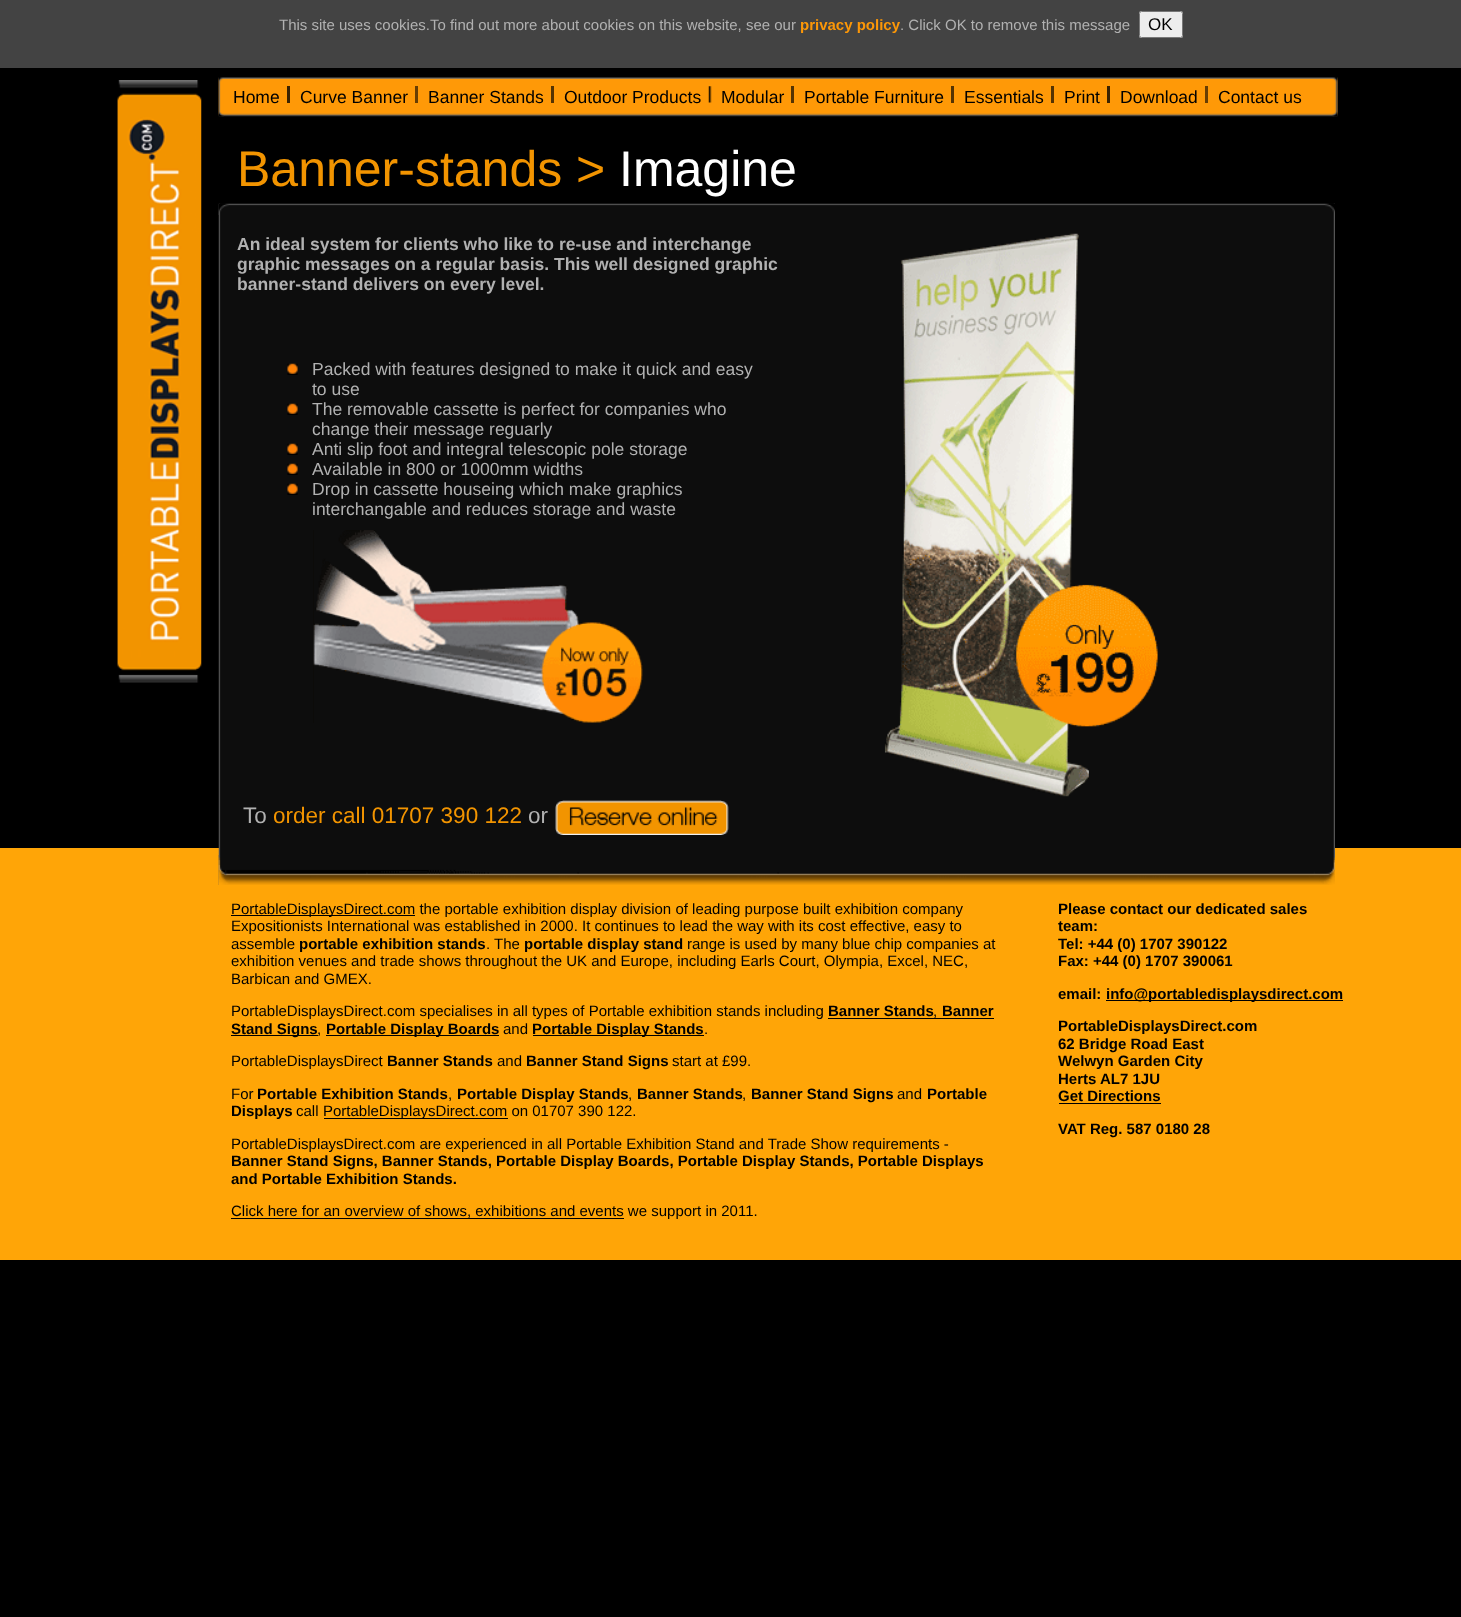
(async () => {
const canvas = document.querySelector("canvas")
canvas.width = 1461
canvas.height = 1617
const c = canvas.getContext("2d")
c.miterLimit = 4
c.fontKerning = "normal"
function T(s,x,y){c.fillText(s,x,y)}
function R(x,y,w,h){c.fillRect(x,y,w,h)}
function Q(x,y,w,h,r){c.beginPath();c.roundRect(x,y,w,h,r);c.fill()}
async function I(src,x,y,w,h){const img=new Image();img.src=src;await img.decode();c.drawImage(img,x,y,w,h)}
c.fillStyle="#000"
R(0,0,1461,1617)
c.fillStyle="#434343"
R(0,0,1461,68)
c.font="15px Liberation Sans"
c.fillStyle="#b1b1b1"
T("This site uses cookies.To find out more about cookies on this website, see our",279,30)
c.font="bold 15px Liberation Sans"
c.fillStyle="#fc9707"
T("privacy policy",800,30)
c.font="15px Liberation Sans"
c.fillStyle="#b1b1b1"
T(". Click OK to remove this message",900,30)
c.fillStyle="#ededed"
Q(1139,11,44,27,2.5)
c.beginPath()
c.roundRect(1139.5,11.5,43,26,2)
c.strokeStyle="#767676fc"
c.stroke()
c.font="17px Liberation Sans"
c.fillStyle="#000"
T("OK",1148,30)
c.fillStyle="#ffa507"
R(0,848,1461,412)
await I("1.png",117,80,85,603)
await I("2.png",218,77,1120,40)
await I("3.png",218,77,6,40)
c.fillStyle="#3b2301"
R(287,86,3,17)
c.font="17.5px Liberation Sans"
c.fillStyle="#000"
T("Home",233,103)
c.fillStyle="#683e03"
R(415,86,3,17)
c.fillStyle="#000"
T("Curve Banner",300,103)
c.fillStyle="#553302"
R(551,86,3,17)
c.fillStyle="#000"
T("Banner Stands",428,103)
await I("4.png",708,86,4,17)
T("Outdoor Products",564,103)
c.fillStyle="#553302"
R(791,86,3,17)
c.fillStyle="#000"
T("Modular",721,103)
c.fillStyle="#553302"
R(951,86,3,17)
c.fillStyle="#000"
T("Portable Furniture",804,103)
c.fillStyle="#553302"
R(1051,86,3,17)
c.fillStyle="#000"
T("Essentials",964,103)
c.fillStyle="#3b2301"
R(1107,86,3,17)
c.fillStyle="#000"
T("Print",1064,103)
c.fillStyle="#683e03"
R(1205,86,3,17)
c.fillStyle="#000"
T("Download",1120,103)
T("Contact us",1218,103)
await I("5.png",1332,77,6,40)
c.font="50px Liberation Sans"
c.fillStyle="#f29400"
T("Banner-stands >",237,186)
c.fillStyle="#fff"
T("Imagine",619,186)
await I("6.png",218,203,1117,682)
await I("7.png",218,203,1117,12)
c.font="bold 17.5px Liberation Sans"
c.fillStyle="#b1b1b1"
T("An ideal system for clients who like to re-use and interchange",237,250)
T("graphic messages on a regular basis. This well designed graphic",237,270)
T("banner-stand delivers on every level.",237,290)
await I("8.png",287,363,11,12)
c.font="17.5px Liberation Sans"
T("Packed with features designed to make it quick and easy",312,375)
T("to use",312,395)
await I("8.png",287,403,11,12)
T("The removable cassette is perfect for companies who",312,415)
T("change their message reguarly",312,435)
await I("8.png",287,443,11,12)
T("Anti slip foot and integral telescopic pole storage",312,455)
await I("8.png",287,463,11,12)
T("Available in 800 or 1000mm widths",312,475)
await I("8.png",287,483,11,12)
T("Drop in cassette houseing which make graphics",312,495)
T("interchangable and reduces storage and waste",312,515)
await I("9.png",313,530,330,193)
await I("10.png",884,233,274,564)
c.font="22.5px Liberation Sans"
T("To",243,823)
c.fillStyle="#f29400"
T("order call 01707 390 122",273,823)
c.fillStyle="#b1b1b1"
T("or",528,823)
await I("11.png",555,800,174,35)
await I("12.png",218,855,1117,30)
c.fillStyle="#000"
R(231,915,184,1)
c.font="15px Liberation Sans"
T("PortableDisplaysDirect.com the portable exhibition display division of leading purpose built exhibition company",231,914)
T("Expositionists International was established in 2000. It continues to lead the way with its cost effective, easy to",231,931)
T("assemble",231,949)
c.font="bold 15px Liberation Sans"
T("portable exhibition stands",299,949)
c.font="15px Liberation Sans"
T(". The",486,949)
c.font="bold 15px Liberation Sans"
T("portable display stand",524,949)
c.font="15px Liberation Sans"
T("range is used by many blue chip companies at",687,949)
T("exhibition venues and trade shows throughout the UK and Europe, including Earls Court, Olympia, Excel, NEC,",231,966)
T("Barbican and GMEX.",231,984)
T("PortableDisplaysDirect.com specialises in all types of Portable exhibition stands including",231,1016)
c.font="bold 15px Liberation Sans"
T("Banner Stands",828,1016)
R(828,1018,166,1)
c.font="15px Liberation Sans"
T(",",933,1016)
c.font="bold 15px Liberation Sans"
T("Banner",942,1016)
R(231,1035,87,1)
T("Stand Signs",231,1034)
c.font="15px Liberation Sans"
T(",",317,1034)
R(326,1035,173,1)
c.font="bold 15px Liberation Sans"
T("Portable Display Boards",326,1034)
c.font="15px Liberation Sans"
T("and",503,1034)
R(533,1035,171,1)
c.font="bold 15px Liberation Sans"
T("Portable Display Stands",532,1034)
c.font="15px Liberation Sans"
T(".",704,1034)
T("PortableDisplaysDirect",231,1066)
c.font="bold 15px Liberation Sans"
T("Banner Stands",387,1066)
c.font="15px Liberation Sans"
T("and",497,1066)
c.font="bold 15px Liberation Sans"
T("Banner Stand Signs",526,1066)
c.font="15px Liberation Sans"
T("start at £99.",672,1066)
T("For",231,1099)
c.font="bold 15px Liberation Sans"
T("Portable Exhibition Stands",257,1099)
c.font="15px Liberation Sans"
T(",",448,1099)
c.font="bold 15px Liberation Sans"
T("Portable Display Stands",457,1099)
c.font="15px Liberation Sans"
T(",",628,1099)
c.font="bold 15px Liberation Sans"
T("Banner Stands",637,1099)
c.font="15px Liberation Sans"
T(",",742,1099)
c.font="bold 15px Liberation Sans"
T("Banner Stand Signs",751,1099)
c.font="15px Liberation Sans"
T("and",897,1099)
c.font="bold 15px Liberation Sans"
T("Portable",927,1099)
T("Displays",231,1116)
c.font="15px Liberation Sans"
T("call",296,1116)
R(324,1118,184,1)
T("PortableDisplaysDirect.com on 01707 390 122.",323,1116)
T("PortableDisplaysDirect.com are experienced in all Portable Exhibition Stand and Trade Show requirements -",231,1149)
c.font="bold 15px Liberation Sans"
T("Banner Stand Signs, Banner Stands, Portable Display Boards, Portable Display Stands, Portable Displays",231,1166)
T("and Portable Exhibition Stands.",231,1184)
R(231,1218,393,1)
c.font="15px Liberation Sans"
T("Click here for an overview of shows, exhibitions and events we support in 2011.",231,1216)
c.font="bold 15px Liberation Sans"
T("Please contact our dedicated sales",1058,914)
T("team:",1058,931)
T("Tel: +44 (0) 1707 390122",1058,949)
T("Fax: +44 (0) 1707 390061",1058,966)
T("email:",1058,999)
R(1106,1000,237,1)
T("info@portabledisplaysdirect.com",1106,999)
T("PortableDisplaysDirect.com",1058,1031)
T("62 Bridge Road East",1058,1049)
T("Welwyn Garden City",1058,1066)
T("Herts AL7 1JU",1058,1084)
T("Get Directions",1058,1101)
R(1059,1103,102,1)
T("VAT Reg. 587 0180 28",1058,1134)
})()
